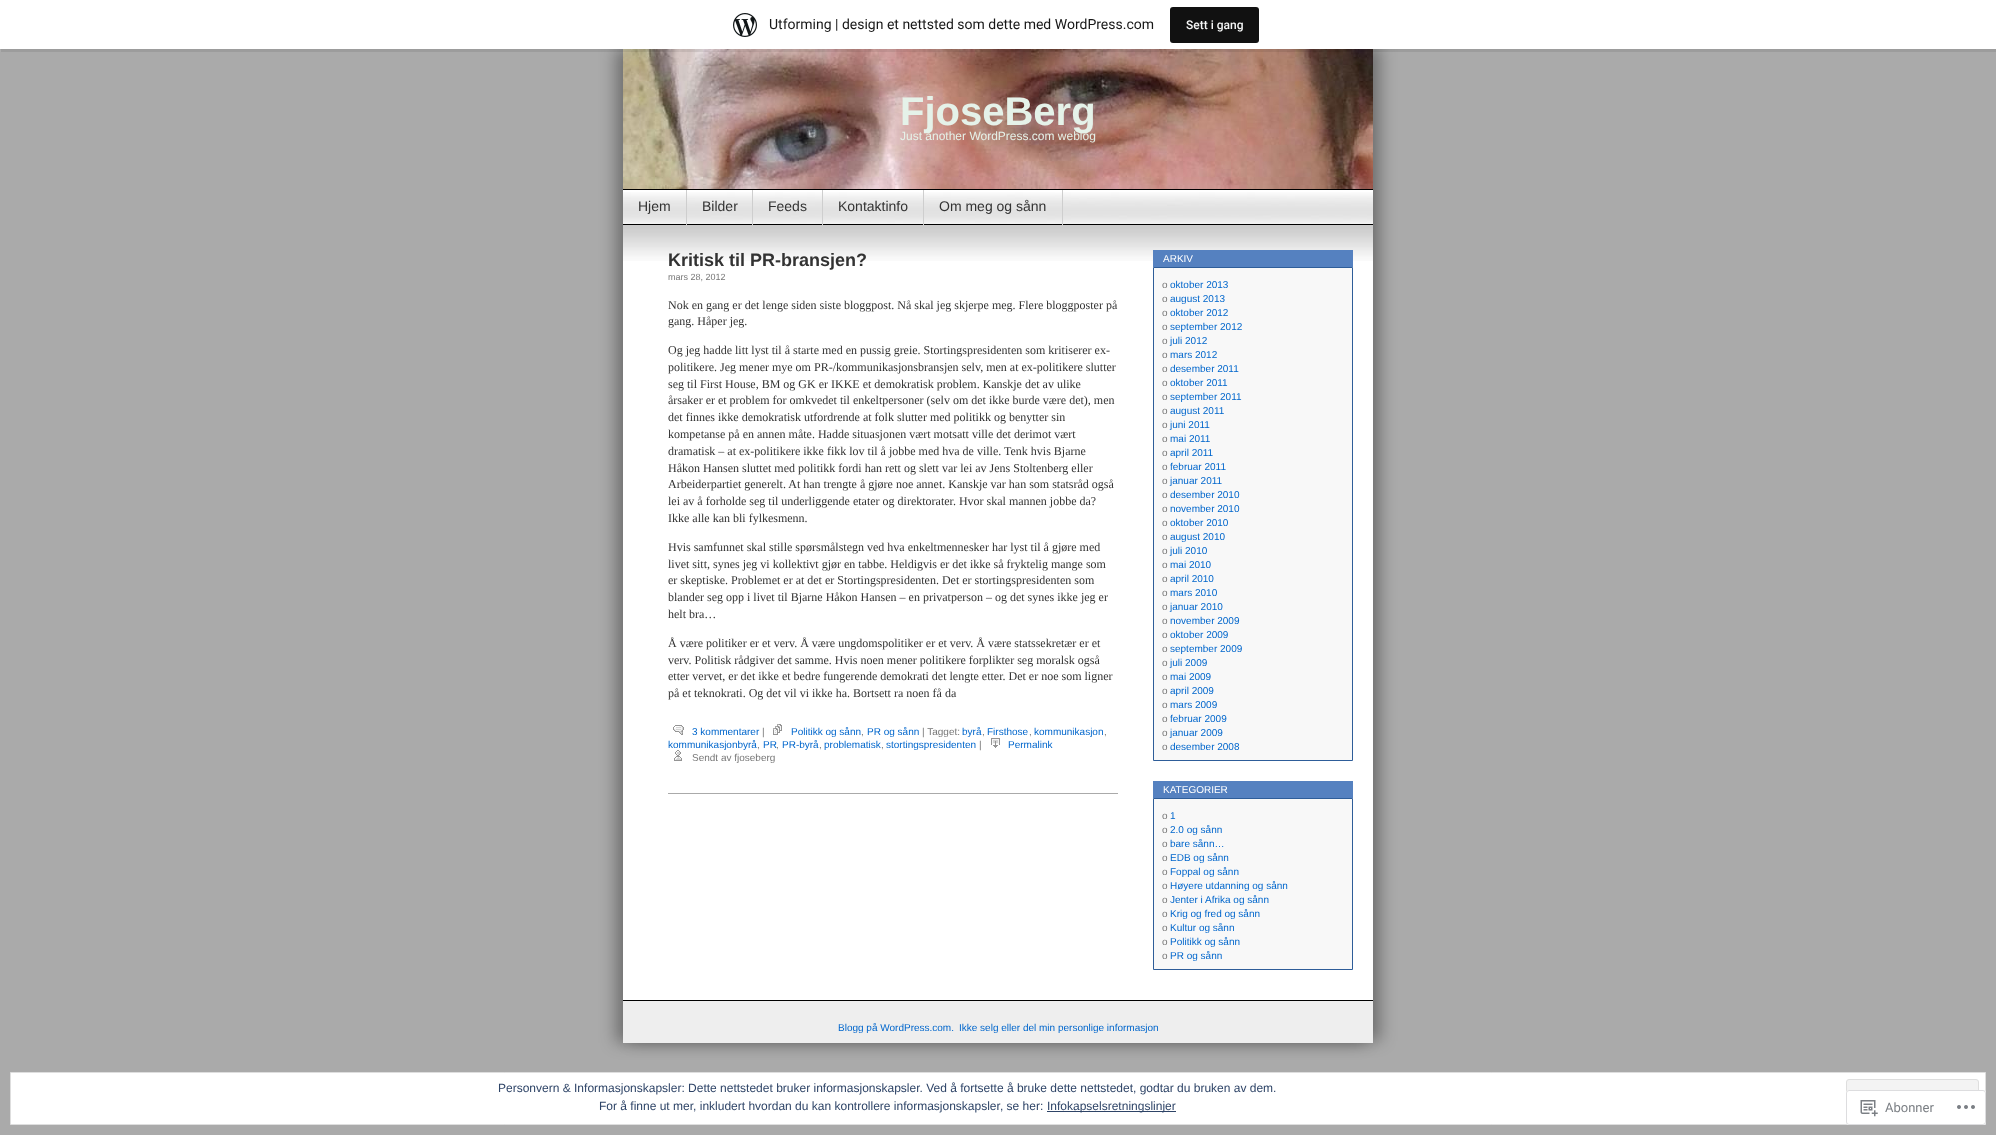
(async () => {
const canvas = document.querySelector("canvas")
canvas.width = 1996
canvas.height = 1135
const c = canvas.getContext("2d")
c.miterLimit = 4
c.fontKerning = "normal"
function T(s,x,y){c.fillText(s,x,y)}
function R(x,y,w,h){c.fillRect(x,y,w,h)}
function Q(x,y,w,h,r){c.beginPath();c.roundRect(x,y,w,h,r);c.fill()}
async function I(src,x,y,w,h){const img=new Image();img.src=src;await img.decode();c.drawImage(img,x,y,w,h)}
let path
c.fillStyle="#aaa"
R(0,0,1996,1135)
c.fillStyle="#0000004d"
c.filter="blur(8px)"
c.beginPath()
c.rect(615,49,750,994)
c.fill()
c.filter="none"
c.filter="blur(8px)"
c.beginPath()
c.rect(631,47,750,994)
c.fill()
c.filter="none"
await I("2.png",623,49,750,140)
c.fillStyle="#00000014"
path = new Path2D("M1 49v3h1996v-49h-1v46z")
c.fill(path)
c.fillStyle="#fff"
R(0,0,1996,49)
await I("1.png",733,13,24,24)
c.font="14px Roboto"
c.fillStyle="#171717"
T("Utforming | design et nettsted som dette med WordPress.com",769,29)
c.fillStyle="#111"
Q(1170,7,89,36,3)
c.font="500 12px Roboto"
c.fillStyle="#f6f7f7"
T("Sett i gang",1186,29)
c.fillStyle="#fff"
R(623,190,750,810)
c.fillStyle="#000"
R(623,189,750,1)
c.font="bold 40px Liberation Sans"
c.fillStyle="#e5f2e9"
T("FjoseBerg",900,125)
c.font="12px Liberation Sans"
T("Just another WordPress.com weblog",900,140)
await I("3.png",623,192,750,32)
c.fillStyle="#000"
R(623,224,750,1)
c.fillStyle="#cecece"
R(686,190,1,35)
c.font="14px Liberation Sans"
c.fillStyle="#333"
T("Hjem",638,211)
c.fillStyle="#cecece"
R(752,190,1,35)
c.fillStyle="#333"
T("Bilder",702,211)
c.fillStyle="#cecece"
R(822,190,1,35)
c.fillStyle="#333"
T("Feeds",768,211)
c.fillStyle="#cecece"
R(923,190,1,35)
c.fillStyle="#333"
T("Kontaktinfo",838,211)
c.fillStyle="#cecece"
R(1062,190,1,35)
c.fillStyle="#333"
T("Om meg og sånn",939,211)
await I("4.png",623,225,750,36)
c.font="bold 18px Liberation Sans"
T("Kritisk til PR-bransjen?",668,266)
c.font="9px Liberation Sans"
c.fillStyle="#777"
T("mars 28, 2012",668,280)
c.font="12px Liberation Serif"
c.fillStyle="#333"
T("Nok en gang er det lenge siden siste bloggpost. Nå skal jeg skjerpe meg. Flere bloggposter på",668,309)
T("gang. Håper jeg.",668,325)
T("Og jeg hadde litt lyst til å starte med en pussig greie. Stortingspresidenten som kritiserer ex-",668,354)
T("politikere. Jeg mener mye om PR-/kommunikasjonsbransjen selv, men at ex-politikere slutter",668,371)
T("seg til First House, BM og GK er IKKE et demokratisk problem. Kanskje det av ulike",668,388)
T("årsaker er et problem for omkvedet til enkeltpersoner (selv om det ikke burde være det), men",668,404)
T("det finnes ikke demokratisk utfordrende at folk slutter med politikk og benytter sin",668,421)
T("kompetanse på en annen måte. Hadde situasjonen vært motsatt ville det derimot vært",668,438)
T("dramatisk – at ex-politikere ikke fikk lov til å jobbe med hva de ville. Tenk hvis Bjarne",668,455)
T("Håkon Hansen sluttet med politikk fordi han rett og slett var lei av Jens Stoltenberg eller",668,472)
T("Arbeiderpartiet generelt. At han trengte å gjøre noe annet. Kanskje var han som statsråd også",668,488)
T("lei av å forholde seg til underliggende etater og direktorater. Hvor skal mannen jobbe da?",668,505)
T("Ikke alle kan bli fylkesmenn.",668,522)
T("Hvis samfunnet skal stille spørsmålstegn ved hva enkeltmennesker har lyst til å gjøre med",668,551)
T("livet sitt, synes jeg vi kollektivt gjør en tabbe. Heldigvis er det ikke så fryktelig mange som",668,568)
T("er skeptiske. Problemet er at det er Stortingspresidenten. Det er stortingspresidenten som",668,584)
T("blander seg opp i livet til Bjarne Håkon Hansen – en privatperson – og det synes ikke jeg er",668,601)
T("helt bra…",668,618)
T("Å være politiker er et verv. Å være ungdomspolitiker er et verv. Å være statssekretær er et",668,647)
T("verv. Politisk rådgiver det samme. Hvis noen mener politikere forplikter seg moralsk også",668,664)
T("etter vervet, er det ikke et bedre fungerende demokrati det lengte etter. Det er noe som ligner",668,680)
T("på et teknokrati. Og det vil vi ikke ha. Bortsett ra noen få da",668,697)
await I("5.png",673,725,11,10)
c.font="10px Liberation Sans"
c.fillStyle="#06c"
T("3 kommentarer",692,735)
c.fillStyle="#777"
T("|",762,735)
await I("6.png",773,724,9,11)
c.fillStyle="#06c"
T("Politikk og sånn",791,735)
c.fillStyle="#777"
T(",",861,735)
c.fillStyle="#06c"
T("PR og sånn",867,735)
c.fillStyle="#777"
T("| Tagget:",922,735)
c.fillStyle="#06c"
T("byrå",962,735)
c.fillStyle="#777"
T(",",982,735)
c.fillStyle="#06c"
T("Firsthose",987,735)
c.fillStyle="#777"
T(",",1029,735)
c.fillStyle="#06c"
T("kommunikasjon",1034,735)
c.fillStyle="#777"
T(",",1104,735)
c.fillStyle="#06c"
T("kommunikasjonbyrå",668,748)
c.fillStyle="#777"
T(",",757,748)
c.fillStyle="#06c"
T("PR",763,748)
c.fillStyle="#777"
T(",",776,748)
c.fillStyle="#06c"
T("PR-byrå",782,748)
c.fillStyle="#777"
T(",",819,748)
c.fillStyle="#06c"
T("problematisk",824,748)
c.fillStyle="#777"
T(",",881,748)
c.fillStyle="#06c"
T("stortingspresidenten",886,748)
c.fillStyle="#777"
T("|",979,748)
await I("7.png",991,738,9,10)
c.fillStyle="#06c"
T("Permalink",1008,748)
await I("8.png",674,750,8,11)
c.fillStyle="#777"
T("Sendt av fjoseberg",692,761)
c.fillStyle="#aaa"
R(668,793,450,1)
c.fillStyle="#5581c0"
R(1153,250,200,17)
c.fillStyle="#fff"
T("ARKIV",1163,262)
c.fillStyle="#f8f8f8"
c.beginPath()
c.rect(1153.5,267.5,199,493)
c.fill()
c.strokeStyle="#2e5d99"
c.stroke()
c.fillStyle="#777"
T("o",1162,288)
c.fillStyle="#06c"
T("oktober 2013",1170,288)
c.fillStyle="#777"
T("o",1162,302)
c.fillStyle="#06c"
T("august 2013",1170,302)
c.fillStyle="#777"
T("o",1162,316)
c.fillStyle="#06c"
T("oktober 2012",1170,316)
c.fillStyle="#777"
T("o",1162,330)
c.fillStyle="#06c"
T("september 2012",1170,330)
c.fillStyle="#777"
T("o",1162,344)
c.fillStyle="#06c"
T("juli 2012",1170,344)
c.fillStyle="#777"
T("o",1162,358)
c.fillStyle="#06c"
T("mars 2012",1170,358)
c.fillStyle="#777"
T("o",1162,372)
c.fillStyle="#06c"
T("desember 2011",1170,372)
c.fillStyle="#777"
T("o",1162,386)
c.fillStyle="#06c"
T("oktober 2011",1170,386)
c.fillStyle="#777"
T("o",1162,400)
c.fillStyle="#06c"
T("september 2011",1170,400)
c.fillStyle="#777"
T("o",1162,414)
c.fillStyle="#06c"
T("august 2011",1170,414)
c.fillStyle="#777"
T("o",1162,428)
c.fillStyle="#06c"
T("juni 2011",1170,428)
c.fillStyle="#777"
T("o",1162,442)
c.fillStyle="#06c"
T("mai 2011",1170,442)
c.fillStyle="#777"
T("o",1162,456)
c.fillStyle="#06c"
T("april 2011",1170,456)
c.fillStyle="#777"
T("o",1162,470)
c.fillStyle="#06c"
T("februar 2011",1170,470)
c.fillStyle="#777"
T("o",1162,484)
c.fillStyle="#06c"
T("januar 2011",1170,484)
c.fillStyle="#777"
T("o",1162,498)
c.fillStyle="#06c"
T("desember 2010",1170,498)
c.fillStyle="#777"
T("o",1162,512)
c.fillStyle="#06c"
T("november 2010",1170,512)
c.fillStyle="#777"
T("o",1162,526)
c.fillStyle="#06c"
T("oktober 2010",1170,526)
c.fillStyle="#777"
T("o",1162,540)
c.fillStyle="#06c"
T("august 2010",1170,540)
c.fillStyle="#777"
T("o",1162,554)
c.fillStyle="#06c"
T("juli 2010",1170,554)
c.fillStyle="#777"
T("o",1162,568)
c.fillStyle="#06c"
T("mai 2010",1170,568)
c.fillStyle="#777"
T("o",1162,582)
c.fillStyle="#06c"
T("april 2010",1170,582)
c.fillStyle="#777"
T("o",1162,596)
c.fillStyle="#06c"
T("mars 2010",1170,596)
c.fillStyle="#777"
T("o",1162,610)
c.fillStyle="#06c"
T("januar 2010",1170,610)
c.fillStyle="#777"
T("o",1162,624)
c.fillStyle="#06c"
T("november 2009",1170,624)
c.fillStyle="#777"
T("o",1162,638)
c.fillStyle="#06c"
T("oktober 2009",1170,638)
c.fillStyle="#777"
T("o",1162,652)
c.fillStyle="#06c"
T("september 2009",1170,652)
c.fillStyle="#777"
T("o",1162,666)
c.fillStyle="#06c"
T("juli 2009",1170,666)
c.fillStyle="#777"
T("o",1162,680)
c.fillStyle="#06c"
T("mai 2009",1170,680)
c.fillStyle="#777"
T("o",1162,694)
c.fillStyle="#06c"
T("april 2009",1170,694)
c.fillStyle="#777"
T("o",1162,708)
c.fillStyle="#06c"
T("mars 2009",1170,708)
c.fillStyle="#777"
T("o",1162,722)
c.fillStyle="#06c"
T("februar 2009",1170,722)
c.fillStyle="#777"
T("o",1162,736)
c.fillStyle="#06c"
T("januar 2009",1170,736)
c.fillStyle="#777"
T("o",1162,750)
c.fillStyle="#06c"
T("desember 2008",1170,750)
c.fillStyle="#5581c0"
R(1153,781,200,17)
c.fillStyle="#fff"
T("KATEGORIER",1163,793)
c.fillStyle="#f8f8f8"
c.beginPath()
c.rect(1153.5,798.5,199,171)
c.fill()
c.stroke()
c.fillStyle="#777"
T("o",1162,819)
c.fillStyle="#06c"
T("1",1170,819)
c.fillStyle="#777"
T("o",1162,833)
c.fillStyle="#06c"
T("2.0 og sånn",1170,833)
c.fillStyle="#777"
T("o",1162,847)
c.fillStyle="#06c"
T("bare sånn…",1170,847)
c.fillStyle="#777"
T("o",1162,861)
c.fillStyle="#06c"
T("EDB og sånn",1170,861)
c.fillStyle="#777"
T("o",1162,875)
c.fillStyle="#06c"
T("Foppal og sånn",1170,875)
c.fillStyle="#777"
T("o",1162,889)
c.fillStyle="#06c"
T("Høyere utdanning og sånn",1170,889)
c.fillStyle="#777"
T("o",1162,903)
c.fillStyle="#06c"
T("Jenter i Afrika og sånn",1170,903)
c.fillStyle="#777"
T("o",1162,917)
c.fillStyle="#06c"
T("Krig og fred og sånn",1170,917)
c.fillStyle="#777"
T("o",1162,931)
c.fillStyle="#06c"
T("Kultur og sånn",1170,931)
c.fillStyle="#777"
T("o",1162,945)
c.fillStyle="#06c"
T("Politikk og sånn",1170,945)
c.fillStyle="#777"
T("o",1162,959)
c.fillStyle="#06c"
T("PR og sånn",1170,959)
c.fillStyle="#eee"
R(623,1001,750,42)
c.fillStyle="#000"
R(623,1000,750,1)
c.fillStyle="#06c"
T("Blogg på WordPress.com.",838,1031)
T("Ikke selg eller del min personlige informasjon",959,1031)
c.fillStyle="#fff"
c.beginPath()
c.rect(10.5,1072.5,1975,52)
c.fill()
c.strokeStyle="#dedede"
c.stroke()
c.font="12px Liberation Sans"
c.fillStyle="#2e4467"
T("Personvern & Informasjonskapsler: Dette nettstedet bruker informasjonskapsler. Ved å fortsette å bruke dette nettstedet, godtar du bruken av dem.",498,1092)
c.fillStyle="#f3f3f3"
c.beginPath()
c.roundRect(1846.5,1079.5,132,38,2.5)
c.fill()
c.stroke()
c.fillStyle="#2e4467"
T("For å finne ut mer, inkludert hvordan du kan kontrollere informasjonskapsler, se her:",599,1110)
R(1047,1111,129,1)
T("Infokapselsretningslinjer",1047,1110)
c.fillStyle="#fffffffa"
Q(1846,1090,140,35,3)
c.beginPath()
c.roundRect(1846.5,1090.5,139,34,2.5)
c.strokeStyle="#dcdcdefa"
c.stroke()
await I("9.png",1860,1100,18,17)
c.font="13px Roboto"
c.fillStyle="#7b7f84"
T("Abonner",1885,1112)
await I("10.png",1957,1105,18,4)
})()
